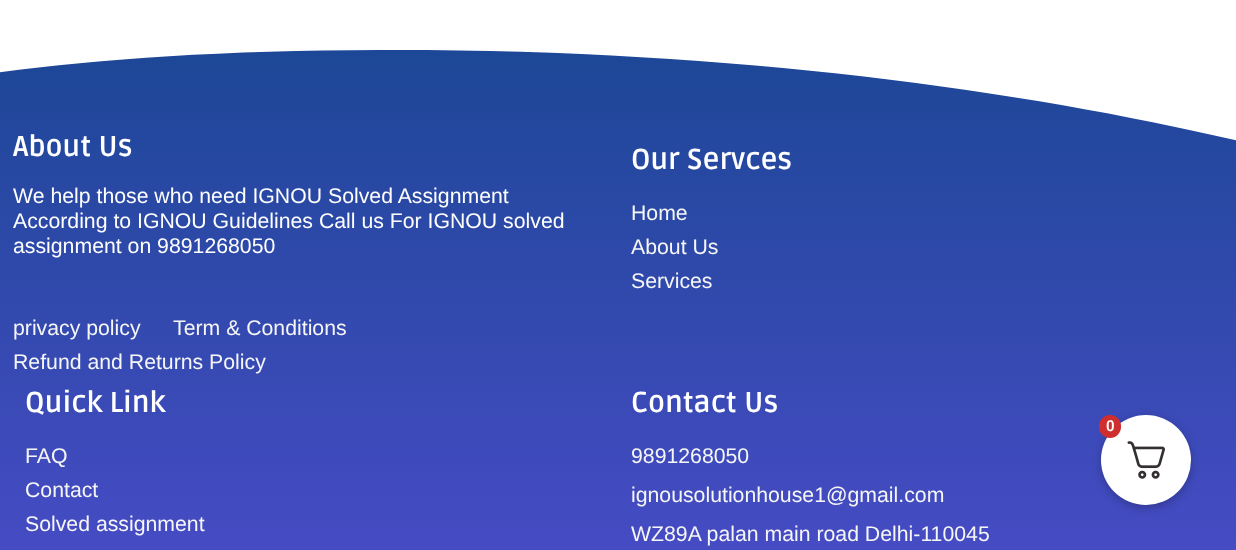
(async () => {
const canvas = document.querySelector("canvas")
canvas.width = 1236
canvas.height = 550
const c = canvas.getContext("2d")
c.miterLimit = 4
c.fontKerning = "normal"
function T(s,x,y){c.fillText(s,x,y)}
function R(x,y,w,h){c.fillRect(x,y,w,h)}
function Q(x,y,w,h,r){c.beginPath();c.roundRect(x,y,w,h,r);c.fill()}
async function I(src,x,y,w,h){const img=new Image();img.src=src;await img.decode();c.drawImage(img,x,y,w,h)}
let gradient, path
c.fillStyle="#fff"
R(0,0,1236,550)
gradient = c.createLinearGradient(618,42,618,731)
gradient.addColorStop(0,"#1c4796")
gradient.addColorStop(1,"#554dd4")
c.fillStyle = gradient
R(0,50,1236,500)
c.fillStyle="#fff"
path = new Path2D("M379 50c775-3 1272 205 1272 254v-262h-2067v262c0-50 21-252 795-254z")
c.fill(path)
c.font="bold 28.75px Ruda"
T("About Us",13,156)
c.font="21.25px Liberation Sans"
T("We help those who need IGNOU Solved Assignment",13,203)
T("According to IGNOU Guidelines Call us For IGNOU solved",13,228)
T("assignment on 9891268050",13,253)
c.fillStyle="#f6f6f6"
T("privacy policy",13,335)
T("Term & Conditions",173,335)
T("Refund and Returns Policy",13,369)
c.font="bold 28.75px Ruda"
c.fillStyle="#fff"
T("Our Servces",631,169)
c.font="21.25px Liberation Sans"
c.fillStyle="#f6f6f6"
T("Home",631,220)
T("About Us",631,254)
T("Services",631,288)
c.font="bold 28.75px Ruda"
c.fillStyle="#fff"
T("Quick Link",25,412)
c.font="21.25px Liberation Sans"
c.fillStyle="#f6f6f6"
T("FAQ",25,463)
T("Contact",25,497)
T("Solved assignment",25,531)
c.font="bold 28.75px Ruda"
c.fillStyle="#fff"
T("Contact Us",631,412)
c.font="21.25px Liberation Sans"
c.fillStyle="#f6f6f6"
T("9891268050",631,463)
T("ignousolutionhouse1@gmail.com",631,502)
T("WZ89A palan main road Delhi-110045",631,541)
c.fillStyle="#00000040"
c.filter="blur(5px)"
c.beginPath()
c.roundRect(1101,418,90,90,45)
c.fill()
c.filter="none"
c.fillStyle="#fff"
c.beginPath()
c.arc(1146,460,45,0,7)
c.fill()
await I("1.png",1127,441,38,38)
c.fillStyle="#cf2e2e"
Q(1099,415,22,23,11)
c.font="600 15px Roboto"
c.fillStyle="#fff"
T("0",1106,431)
})()
